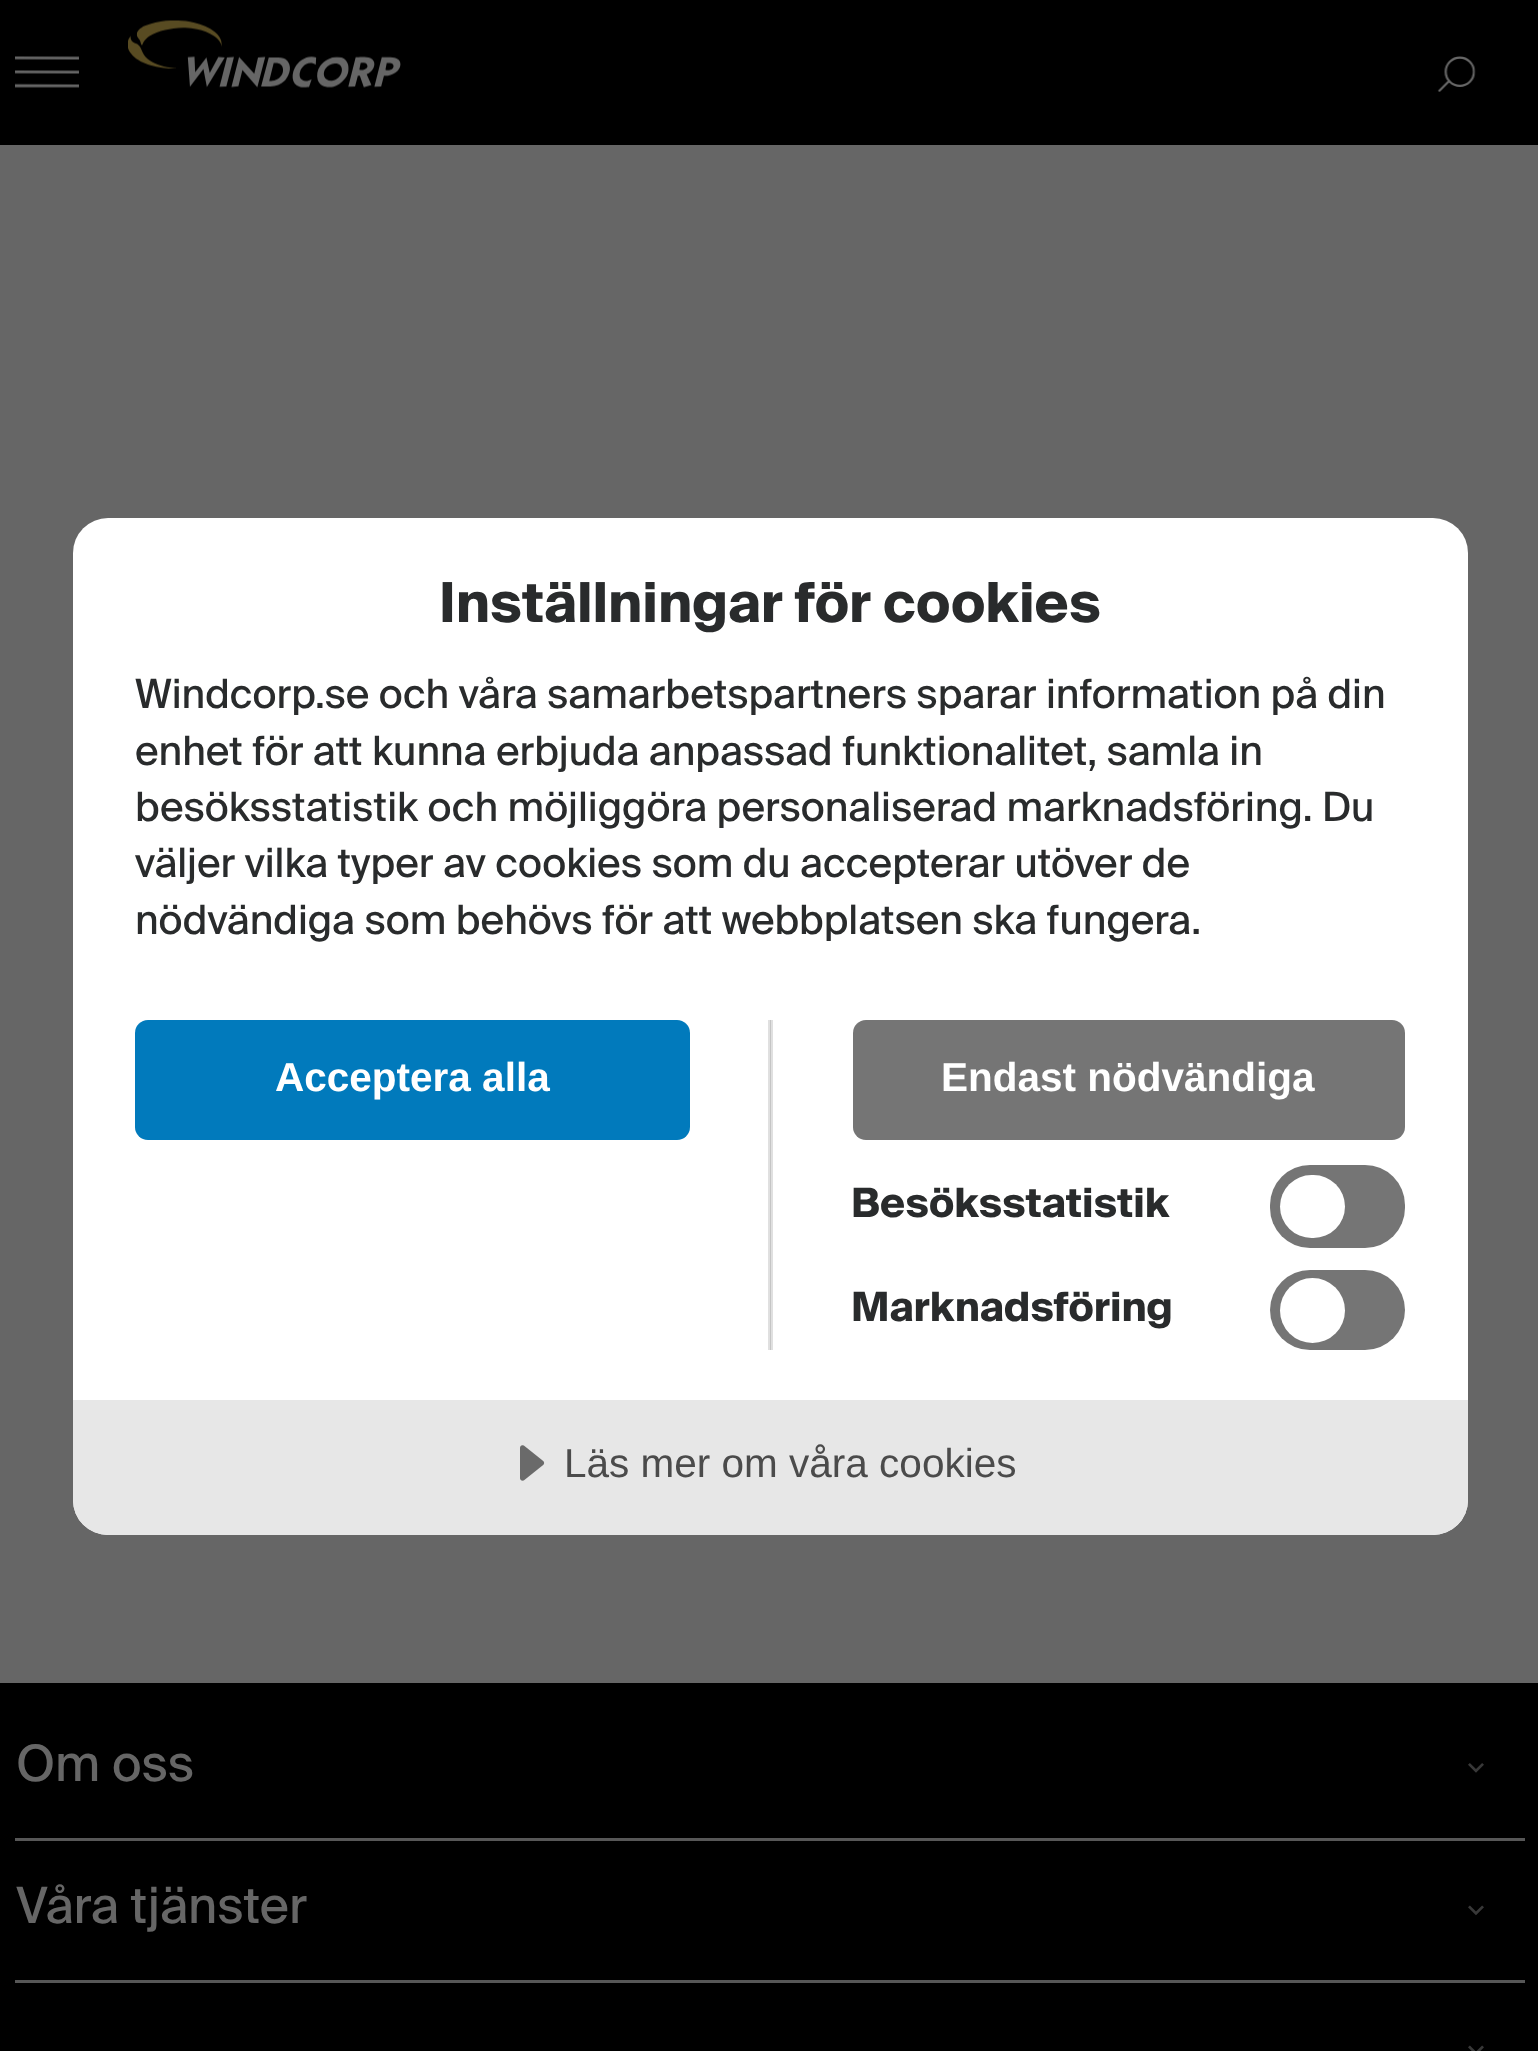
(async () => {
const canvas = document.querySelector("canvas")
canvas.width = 1538
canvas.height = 2051
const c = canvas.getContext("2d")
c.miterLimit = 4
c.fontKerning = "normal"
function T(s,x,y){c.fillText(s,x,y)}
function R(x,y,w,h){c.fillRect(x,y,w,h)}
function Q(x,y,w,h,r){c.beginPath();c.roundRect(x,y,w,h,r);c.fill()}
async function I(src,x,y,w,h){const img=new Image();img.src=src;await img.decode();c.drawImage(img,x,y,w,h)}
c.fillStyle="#666"
R(0,0,1538,2051)
c.fillStyle="#000"
R(0,0,1538,145)
await I("1.png",15,56,64,32)
await I("2.png",128,20,273,68)
await I("3.png",1437,56,39,36)
c.fillStyle="#fff"
Q(73,518,1395,1017,35)
c.fillStyle="#e0e0e0"
R(771,1020,2,330)
c.font="bold 55.1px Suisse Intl"
c.fillStyle="#292b2c"
T("Inställningar för cookies",439,622)
c.font="40.5px Suisse Intl"
T("Windcorp.se och våra samarbetspartners sparar information på din",135,708)
T("enhet för att kunna erbjuda anpassad funktionalitet, samla in",135,765)
T("besöksstatistik och möjliggöra personaliserad marknadsföring. Du",135,821)
T("väljer vilka typer av cookies som du accepterar utöver de",135,877)
T("nödvändiga som behövs för att webbplatsen ska fungera.",135,934)
c.fillStyle="#e0e0e0"
R(768,1020,2,330)
c.fillStyle="#c5c5c5"
R(770,1020,1,330)
c.fillStyle="#017abc"
Q(135,1020,555,120,13)
c.font="bold 40.5px Liberation Sans"
c.fillStyle="#fff"
T("Acceptera alla",275,1091)
c.fillStyle="#757575"
Q(853,1020,552,120,13)
c.fillStyle="#fff"
T("Endast nödvändiga",941,1091)
c.font="bold 40.5px Suisse Intl"
c.fillStyle="#292b2c"
T("Besöksstatistik",851,1217)
c.fillStyle="#757575"
Q(1270,1165,135,83,40)
c.fillStyle="#fff"
Q(1280,1175,65,63,31.5)
c.fillStyle="#292b2c"
T("Marknadsföring",851,1321)
c.fillStyle="#757575"
Q(1270,1270,135,80,40)
c.fillStyle="#fff"
c.beginPath()
c.arc(1312.5,1310.5,32.5,0,7)
c.fill()
c.fillStyle="#e7e7e7"
c.beginPath()
c.roundRect(73,1400,1395,135,[0,0,35,35])
c.fill()
await I("4.png",520,1445,25,36)
c.font="40.5px Liberation Sans"
c.fillStyle="#4b4b4b"
T("Läs mer om våra cookies",564,1477)
c.fillStyle="#000"
R(0,1683,1538,368)
c.fillStyle="#575757"
R(15,1838,1510,3)
c.font="50px Suisse Intl"
c.fillStyle="#666"
T("Om oss",16,1781)
await I("5.png",1468,1763,16,10)
c.fillStyle="#575757"
R(15,1980,1510,3)
c.fillStyle="#666"
T("Våra tjänster",16,1923)
await I("6.png",1468,1905,16,11)
await I("7.png",1468,2045,16,6)
})()
